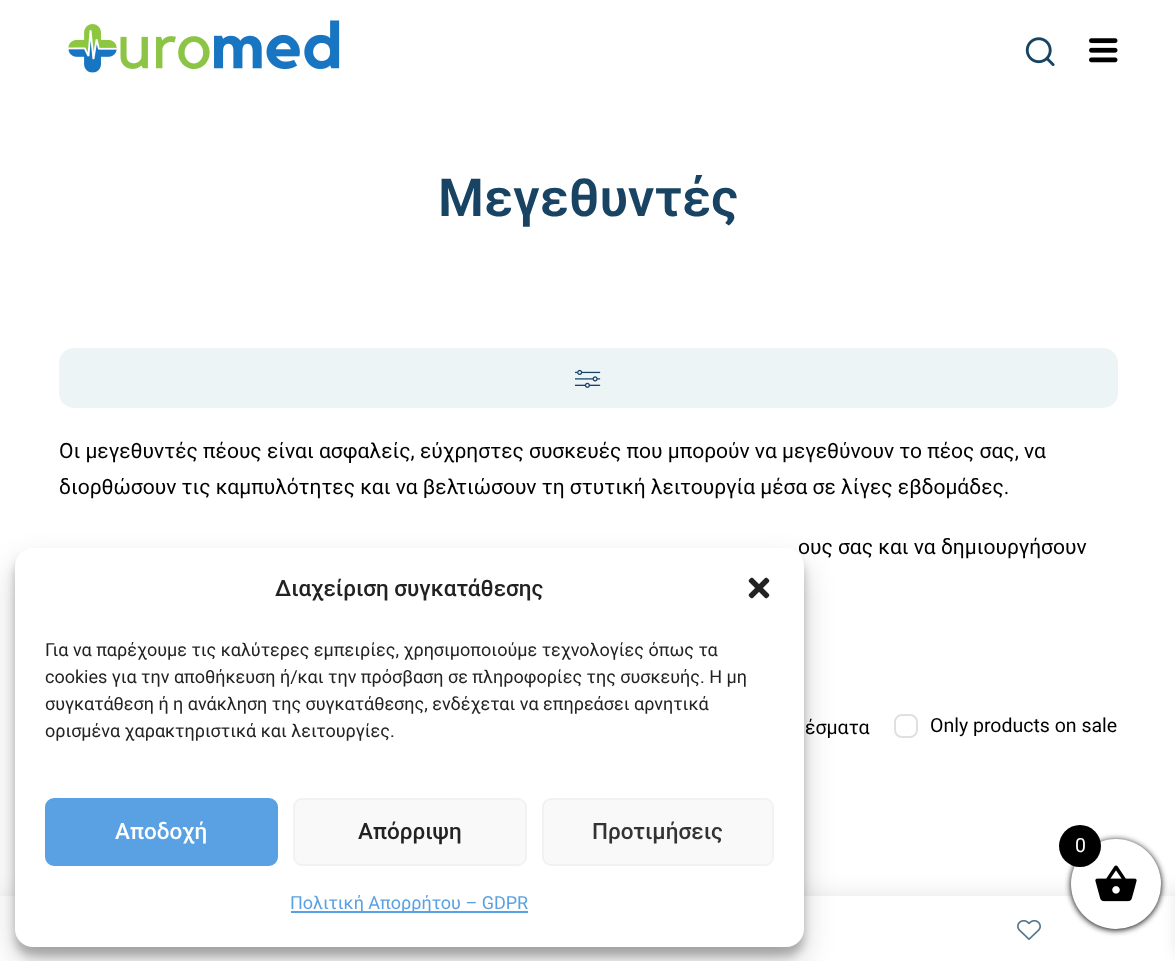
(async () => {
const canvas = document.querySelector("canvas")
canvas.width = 1175
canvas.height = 961
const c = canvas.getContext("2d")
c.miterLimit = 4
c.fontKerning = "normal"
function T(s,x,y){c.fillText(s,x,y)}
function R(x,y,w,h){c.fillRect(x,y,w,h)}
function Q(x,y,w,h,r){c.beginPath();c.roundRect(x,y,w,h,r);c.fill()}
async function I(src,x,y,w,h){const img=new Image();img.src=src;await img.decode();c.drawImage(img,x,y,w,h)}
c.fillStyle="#fff"
R(0,0,1175,961)
await I("1.png",68,20,272,53)
await I("2.png",1025,37,30,30)
await I("3.png",1089,38,29,25)
c.fillStyle="#0000001a"
c.filter="blur(12px)"
c.beginPath()
c.rect(0,896,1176,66)
c.fill()
c.filter="none"
c.fillStyle="#fff"
R(0,896,1175,65)
await I("4.png",1017,919,24,21)
c.font="600 52.5px Roboto"
c.fillStyle="#184363"
T("Μεγεθυντές",438,216)
c.fillStyle="#edf4f6"
Q(59,348,1059,60,15)
await I("5.png",575,369,26,19)
c.font="21px Roboto"
c.fillStyle="#000"
T("Οι μεγεθυντές πέους είναι ασφαλείς, εύχρηστες συσκευές που μπορούν να μεγεθύνουν το πέος σας, να",59,458)
T("διορθώσουν τις καμπυλότητες και να βελτιώσουν τη στυτική λειτουργία μέσα σε λίγες εβδομάδες.",59,494)
T("ους σας και να δημιουργήσουν",798,554)
c.font="19.5px Roboto"
T("έσματα",805,734)
c.beginPath()
c.roundRect(895,715,22,22,7)
c.strokeStyle="#e0e0e0"
c.lineWidth=2
c.stroke()
T("Only products on sale",930,732)
c.fillStyle="#0000003b"
c.filter="blur(4.5px)"
c.beginPath()
c.roundRect(15,557,789,399,18)
c.fill()
c.filter="none"
c.fillStyle="#00000030"
c.filter="blur(15px)"
c.beginPath()
c.roundRect(15,563,789,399,18)
c.fill()
c.filter="none"
c.fillStyle="#fff"
Q(15,548,789,399,18)
c.font="500 22.5px Roboto"
c.fillStyle="#222"
T("Διαχείριση συγκατάθεσης",275,596)
await I("6.png",748,577,22,22)
c.font="18px Roboto"
T("Για να παρέχουμε τις καλύτερες εμπειρίες, χρησιμοποιούμε τεχνολογίες όπως τα",45,656)
T("cookies για την αποθήκευση ή/και την πρόσβαση σε πληροφορίες της συσκευής. Η μη",45,683)
T("συγκατάθεση ή η ανάκληση της συγκατάθεσης, ενδέχεται να επηρεάσει αρνητικά",45,710)
T("ορισμένα χαρακτηριστικά και λειτουργίες.",45,737)
c.fillStyle="#5aa1e3"
c.beginPath()
c.roundRect(46,799,231,66,8)
c.fill()
c.strokeStyle="#5aa1e3"
c.stroke()
c.font="500 22.5px Roboto"
c.fillStyle="#fff"
T("Αποδοχή",115,839)
c.fillStyle="#f9f9f9"
c.beginPath()
c.roundRect(294,799,232,66,8)
c.fill()
c.strokeStyle="#f2f2f2"
c.stroke()
c.fillStyle="#222"
T("Απόρριψη",358,839)
c.fillStyle="#f9f9f9"
c.beginPath()
c.roundRect(543,799,230,66,8)
c.fill()
c.stroke()
c.fillStyle="#333"
T("Προτιμήσεις",592,839)
c.fillStyle="#5aa1e3"
R(291,911,237,2)
c.font="18px Roboto"
T("Πολιτική Απορρήτου – GDPR",290,909)
c.fillStyle="#000"
c.filter="blur(3px)"
c.beginPath()
c.roundRect(1071,840,90,90,45)
c.fill()
c.filter="none"
c.fillStyle="#0000001a"
c.filter="blur(7.5px)"
c.beginPath()
c.rect(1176,888,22,66)
c.fill()
c.filter="none"
c.fillStyle="#fff"
c.beginPath()
c.arc(1116,884,45,0,7)
c.fill()
await I("7.png",1095,865,42,37)
c.fillStyle="#000"
c.beginPath()
c.arc(1080,846,21,0,7)
c.fill()
c.font="19.5px Roboto"
c.fillStyle="#fff"
T("0",1075,852)
})()
